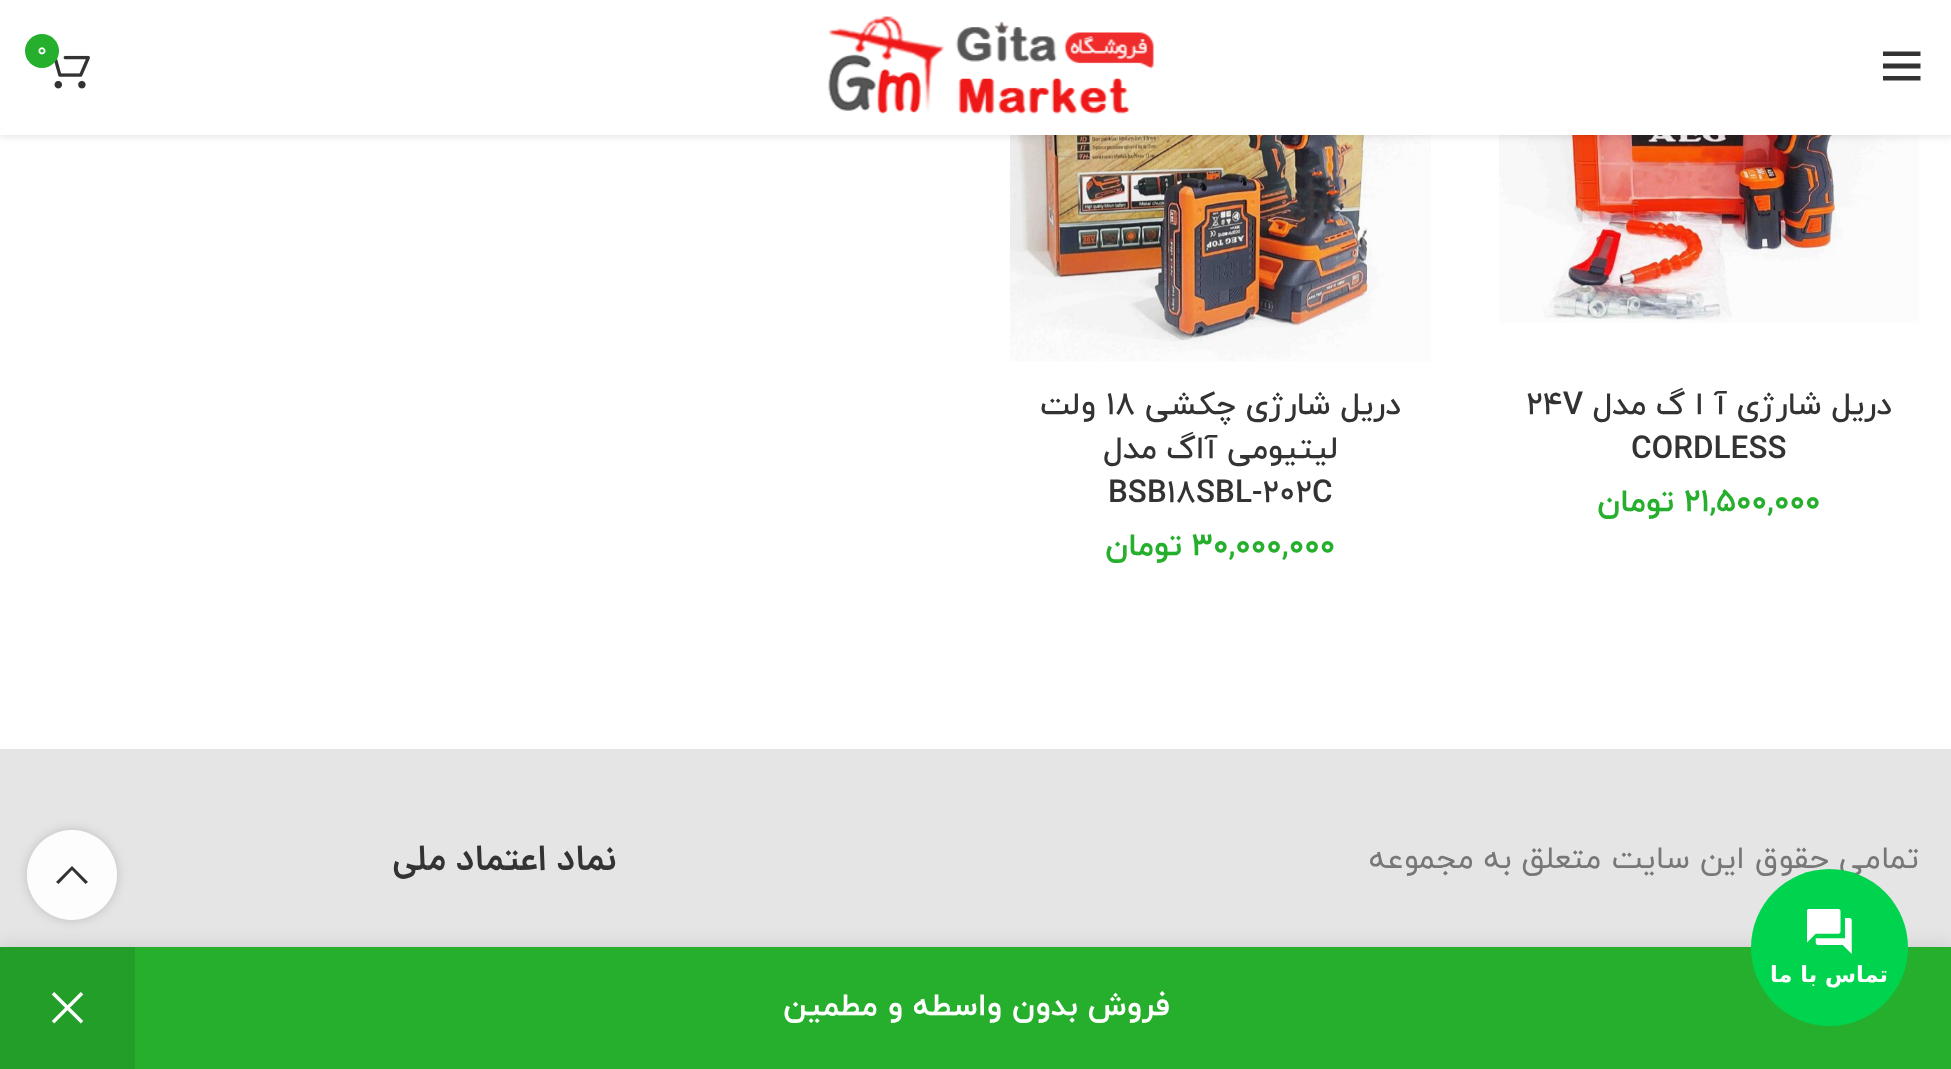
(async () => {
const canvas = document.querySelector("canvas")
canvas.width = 1951
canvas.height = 1069
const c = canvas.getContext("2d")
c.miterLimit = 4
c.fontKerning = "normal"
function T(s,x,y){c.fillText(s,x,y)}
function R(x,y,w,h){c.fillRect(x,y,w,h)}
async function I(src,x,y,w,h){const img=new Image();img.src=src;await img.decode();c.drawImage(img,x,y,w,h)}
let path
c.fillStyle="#fff"
R(0,0,1951,1069)
await I("3.png",1499,135,420,188)
await I("4.png",1010,135,421,227)
c.fillStyle="#0000001a"
c.filter="blur(3.5px)"
c.beginPath()
c.rect(0,2,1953,135)
c.fill()
c.filter="none"
c.fillStyle="#fff"
R(0,0,1951,135)
c.fillStyle="#333"
path = new Path2D("M1883 51.5h37.5v4.5h-37.5zm0 12h37.5v5h-37.5zm0 12.5h37.5v4.5h-37.5z")
c.fill(path)
await I("1.png",828,16,326,98)
await I("2.png",54,55,36,34)
c.fillStyle="#26af2d"
c.beginPath()
c.arc(42,51,17,0,7)
c.fill()
c.font="20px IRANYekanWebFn"
c.fillStyle="#fff"
T("0",37,56)
c.direction="rtl"
c.font="500 31.5px IRANYekanWebFn"
c.fillStyle="#333"
T("دریل شارژی آ ا گ مدل",1892,414)
c.direction="ltr"
T("24V",1526,414)
T("CORDLESS",1631,458)
c.font="bold 31.5px IRANYekanWebFn"
c.fillStyle="#26af2d"
T("21,500,000",1684,511)
c.direction="rtl"
T("تومان",1674,511)
c.font="500 31.5px IRANYekanWebFn"
c.fillStyle="#333"
T("دریل شارژی چکشی",1401,414)
c.direction="ltr"
T("18",1106,414)
c.direction="rtl"
T("ولت",1096,414)
T("لیتیومی آاگ مدل",1338,458)
c.direction="ltr"
T("BSB18SBL-202C",1108,502)
c.font="bold 31.5px IRANYekanWebFn"
c.fillStyle="#26af2d"
T("30,000,000",1192,555)
c.direction="rtl"
T("تومان",1182,555)
c.fillStyle="#e5e5e5"
R(0,749,1951,198)
c.font="31.5px IRANYekanWebFn"
c.fillStyle="#777"
T("تمامی حقوق این سایت متعلق به مجموعه",1919,868)
c.font="600 36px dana"
c.fillStyle="#333"
T("نماد اعتماد ملی",617,870)
c.save()
path = new Path2D("M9 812h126v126h-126zm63 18c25 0 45 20 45 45c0 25-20 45-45 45c-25 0-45-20-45-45c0-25 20-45 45-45z")
c.clip(path,"evenodd")
c.fillStyle="#0000002b"
c.filter="blur(5.5px)"
c.beginPath()
c.roundRect(27,830,90,90,45)
c.fill()
c.filter="none"
c.restore()
c.fillStyle="#ffffffe6"
c.beginPath()
c.arc(72,875,45,0,7)
c.fill()
c.fillStyle="#333"
path = new Path2D("M72 866l16 16l-2.5 2l-13.5-14l-13.5 14l-2.5-2z")
c.fill(path)
c.fillStyle="#0000001f"
c.filter="blur(10px)"
c.beginPath()
c.rect(0,947,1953,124)
c.fill()
c.filter="none"
c.fillStyle="#26af2d"
R(135,947,1816,122)
c.fillStyle="#00d44e"
c.beginPath()
c.arc(1829.5,947.5,78.5,0,7)
c.fill()
await I("5.png",1807,909,45,45)
c.font="bold 22.5px DejaVu Sans"
c.fillStyle="#fff"
T("تماس با ما",1888,982)
c.font="bold 31.5px IRANYekanWebFn"
T("فروش بدون واسطه و مطمین",1170,1015)
c.fillStyle="#229e29"
R(0,947,135,122)
await I("6.png",51,992,33,32)
})()
